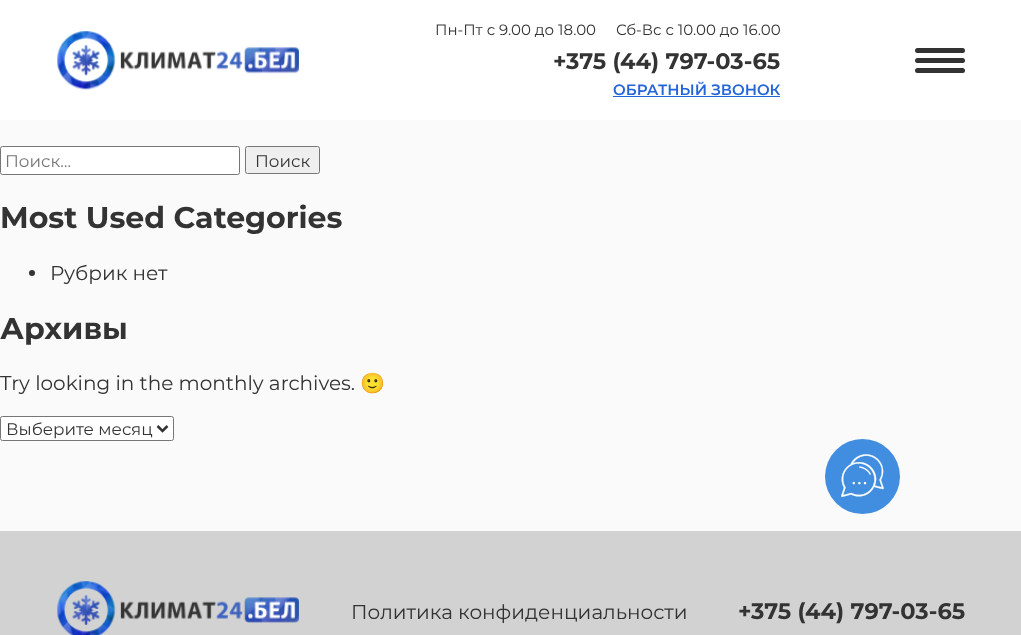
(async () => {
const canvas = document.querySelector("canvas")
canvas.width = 1021
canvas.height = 635
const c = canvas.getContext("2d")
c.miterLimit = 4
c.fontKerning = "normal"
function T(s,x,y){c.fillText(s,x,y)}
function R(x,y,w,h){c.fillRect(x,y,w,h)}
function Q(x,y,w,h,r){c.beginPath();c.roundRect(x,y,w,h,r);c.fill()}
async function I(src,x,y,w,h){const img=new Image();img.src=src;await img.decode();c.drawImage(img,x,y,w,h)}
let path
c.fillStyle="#fafafa"
R(0,0,1021,635)
c.fillStyle="#fff"
R(0,0,1021,120)
await I("1.png",57,31,242,59)
c.font="15px Montserrat"
c.fillStyle="#333"
T("Пн-Пт с 9.00 до 18.00",435,35)
T("Сб-Вс с 10.00 до 16.00",616,35)
c.font="bold 22.5px Montserrat"
T("+375 (44) 797-03-65",553,69)
c.font="600 15px Montserrat"
c.fillStyle="#2465da"
T("ОБРАТНЫЙ ЗВОНОК",613,95)
R(613,96,167,1)
c.fillStyle="#333"
Q(915,48,50,5,2.5)
Q(915,58,50,5,2.5)
Q(915,68,50,5,2.5)
c.fillStyle="#fff"
c.beginPath()
c.roundRect(.5,146.5,239,28,2)
c.fill()
c.strokeStyle="#767676"
c.stroke()
c.font="16.75px Montserrat"
c.fillStyle="#757575"
T("Поиск…",5,167)
c.fillStyle="#efefef"
c.beginPath()
c.roundRect(245.5,146.5,74,27,2)
c.fill()
c.stroke()
c.fillStyle="#333"
T("Поиск",255,167)
c.font="bold 30px Montserrat"
T("Most Used Categories",0,228)
c.beginPath()
c.arc(32,273,3,0,7)
c.fill()
c.font="20px Montserrat"
T("Рубрик нет",50,280)
c.font="bold 30px Montserrat"
T("Архивы",0,339)
c.font="20px Montserrat"
T("Try looking in the monthly archives.",0,390)
c.font="20px Noto Color Emoji"
T("🙂",360,390)
c.fillStyle="#fff"
c.beginPath()
c.roundRect(.5,416.5,173,24,2)
c.fill()
c.stroke()
path = new Path2D("M157.5 426l5 5l5-5")
c.strokeStyle="#333"
c.lineWidth=2.5
c.stroke(path)
c.font="16.75px Montserrat"
c.fillStyle="#333"
T("Выберите месяц",6,435)
c.fillStyle="#418ee0"
c.beginPath()
c.arc(862.5,476.5,37.5,0,7)
c.fill()
await I("2.png",841,454,43,43)
c.fillStyle="#d2d2d2"
R(0,531,1021,104)
await I("3.png",57,581,242,54)
c.font="20px Montserrat"
c.fillStyle="#333"
T("Политика конфиденциальности",351,619)
c.font="bold 22.5px Montserrat"
T("+375 (44) 797-03-65",738,619)
})()
